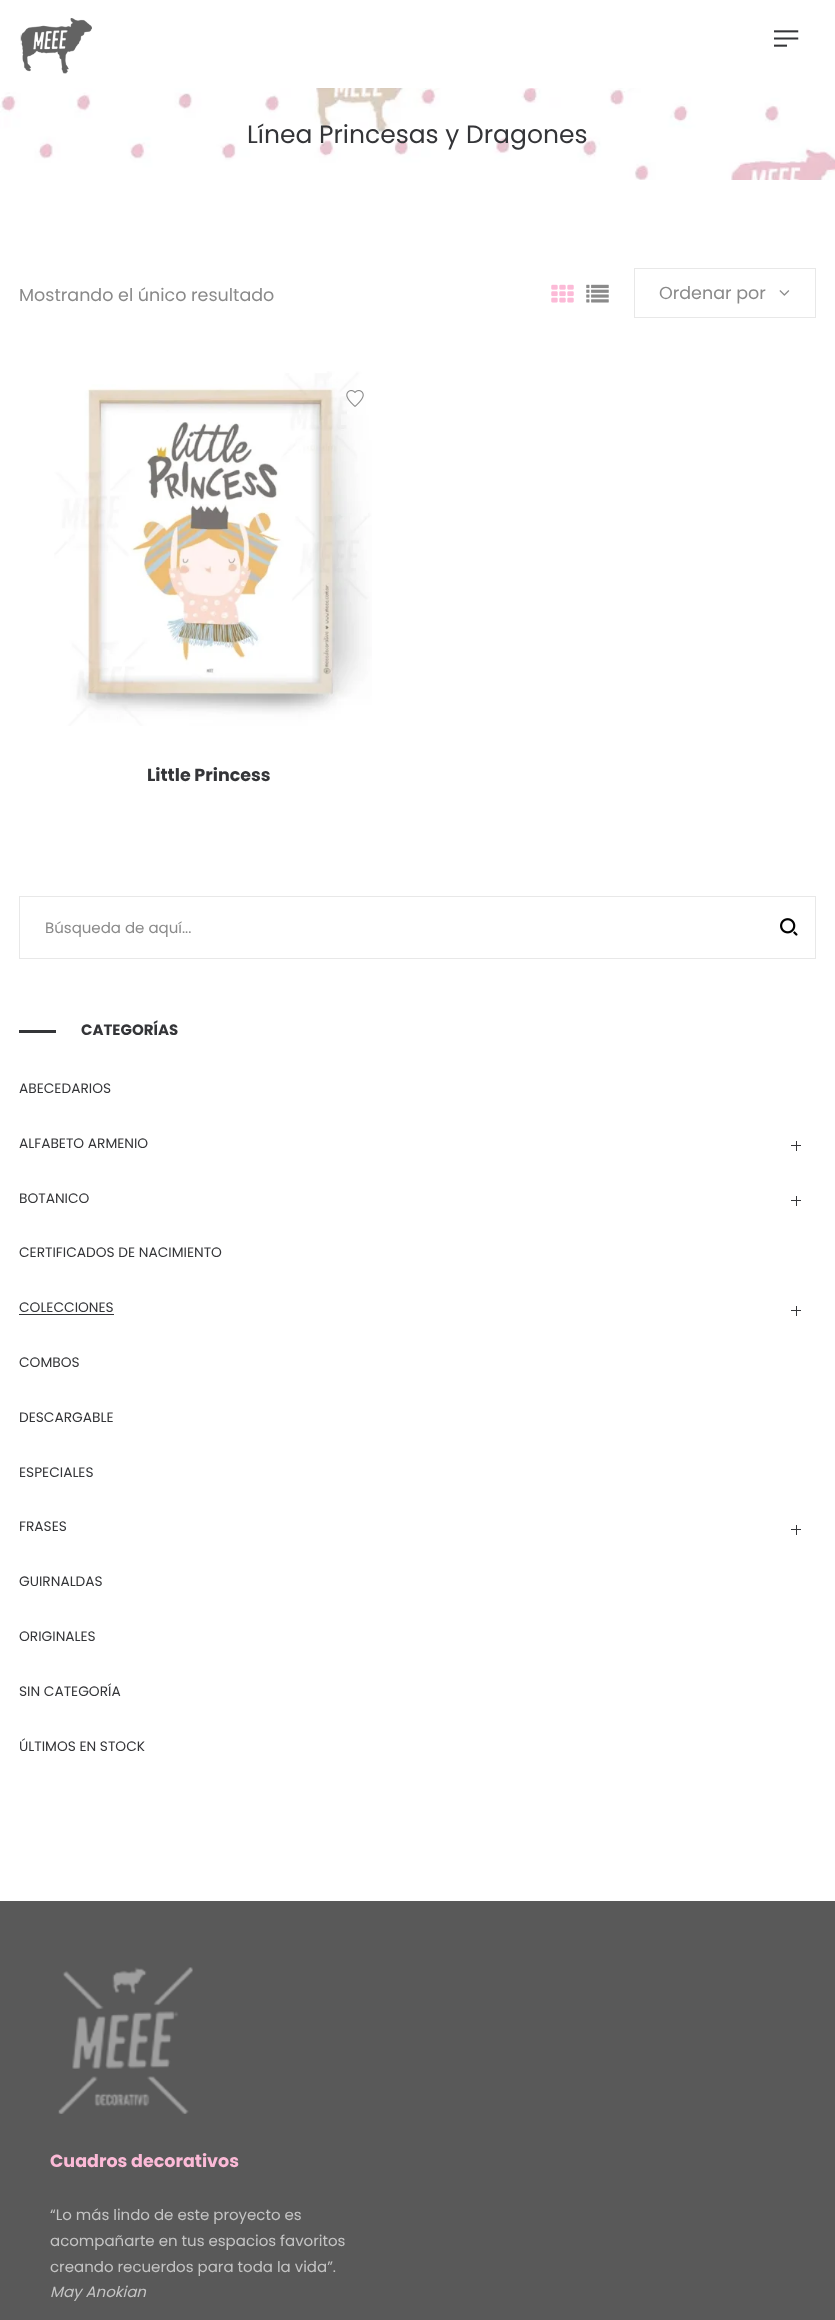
(async () => {
const canvas = document.querySelector("canvas")
canvas.width = 835
canvas.height = 2320
const c = canvas.getContext("2d")
c.miterLimit = 4
c.fontKerning = "normal"
function T(s,x,y){c.fillText(s,x,y)}
function R(x,y,w,h){c.fillRect(x,y,w,h)}
async function I(src,x,y,w,h){const img=new Image();img.src=src;await img.decode();c.drawImage(img,x,y,w,h)}
c.fillStyle="#fff"
R(0,0,835,2320)
await I("1.png",20,18,72,56)
await I("2.png",774,30,25,17)
await I("3.png",0,88,835,92)
c.font="25px Poppins"
c.fillStyle="#343538"
T("Línea Princesas y Dragones",247,143)
c.font="17.5px Poppins"
c.fillStyle="#8a8a8a"
T("Mostrando el único resultado",19,301)
await I("4.png",551,284,23,19)
await I("5.png",586,284,23,19)
c.strokeStyle="#e8e8e8"
c.strokeRect(634.5,268.5,181,49)
T("Ordenar por",659,299)
await I("6.png",779,290,11,6)
await I("7.png",54,371,318,355)
await I("8.png",346,390,18,17)
c.font="bold 17.5px Poppins"
c.fillStyle="#343538"
T("Little Princess",147,781)
c.strokeRect(19.5,896.5,796,62)
c.font="15px Poppins"
c.fillStyle="#8a8a8a"
T("Búsqueda de aquí...",45,933)
await I("9.png",780,918,18,18)
c.fillStyle="#343538"
R(19,1030,37,3)
c.font="bold 15px Poppins"
T("CATEGORÍAS",81,1035)
c.font="13.75px Poppins"
T("ABECEDARIOS",19,1093)
T("ALFABETO ARMENIO",19,1148)
R(791,1145,10,1)
R(796,1141,1,10)
T("BOTANICO",19,1203)
R(791,1200,10,1)
R(796,1196,1,10)
T("CERTIFICADOS DE NACIMIENTO",19,1257)
T("COLECCIONES",19,1312)
R(19,1314,95,1)
R(791,1310,10,1)
R(796,1306,1,10)
T("COMBOS",19,1367)
T("DESCARGABLE",19,1422)
T("ESPECIALES",19,1477)
T("FRASES",19,1531)
R(791,1529,10,1)
R(796,1525,1,10)
T("GUIRNALDAS",19,1586)
T("ORIGINALES",19,1641)
T("SIN CATEGORÍA",19,1696)
T("ÚLTIMOS EN STOCK",19,1751)
c.fillStyle="#595959"
R(0,1901,835,419)
await I("10.png",58,1967,135,147)
c.font="bold 17.5px Poppins"
c.fillStyle="#fcbad7"
T("Cuadros decorativos",50,2167)
c.font="15px Poppins"
c.fillStyle="#c4c4c4"
T("“Lo más lindo de este proyecto es",50,2220)
T("acompañarte en tus espacios favoritos",50,2246)
T("creando recuerdos para toda la vida”.",50,2272)
c.font="italic 15px Poppins"
T("May Anokian",50,2297)
})()
